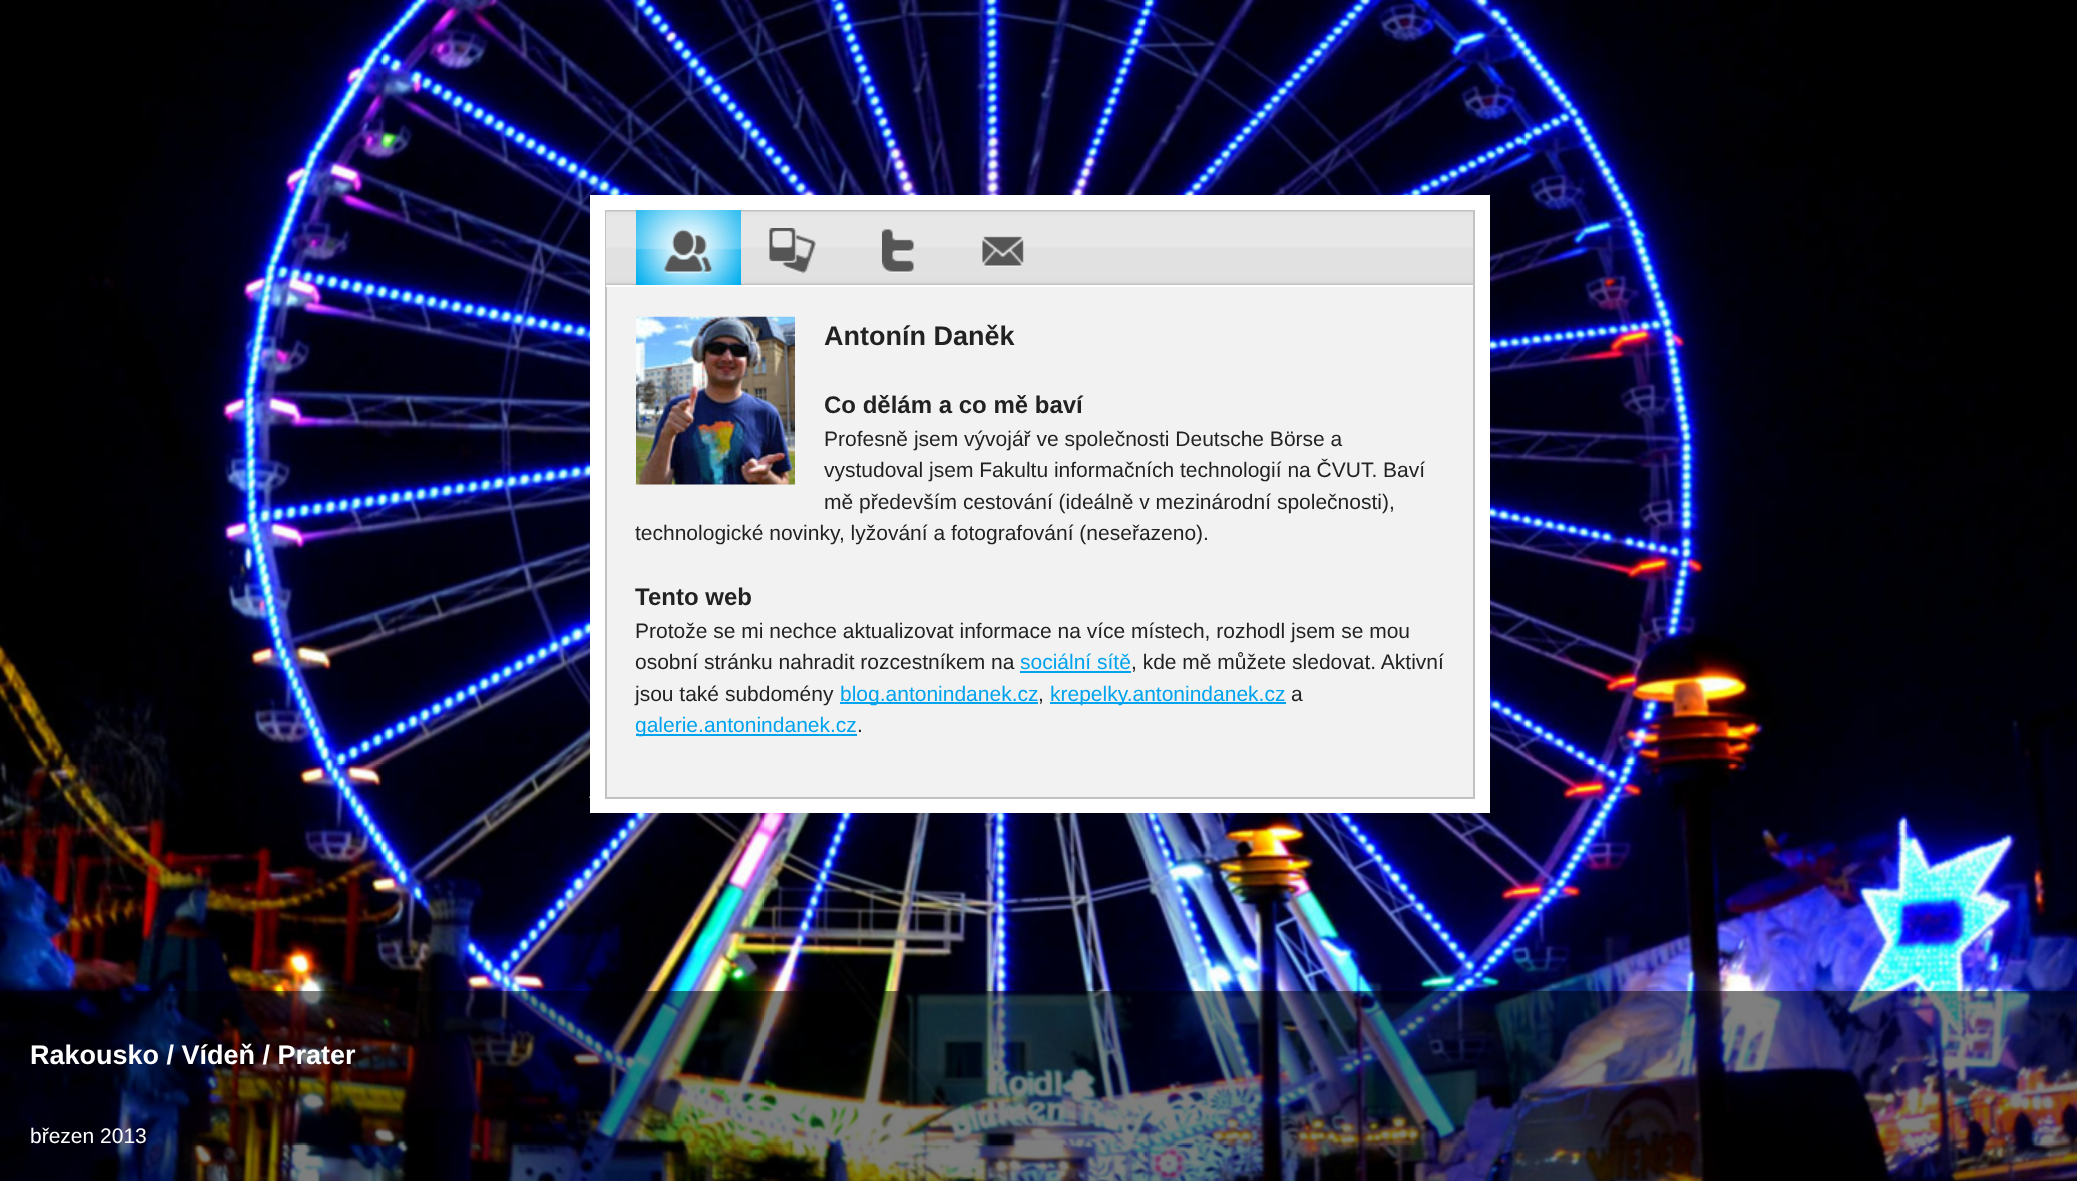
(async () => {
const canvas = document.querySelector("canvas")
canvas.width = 2077
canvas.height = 1181
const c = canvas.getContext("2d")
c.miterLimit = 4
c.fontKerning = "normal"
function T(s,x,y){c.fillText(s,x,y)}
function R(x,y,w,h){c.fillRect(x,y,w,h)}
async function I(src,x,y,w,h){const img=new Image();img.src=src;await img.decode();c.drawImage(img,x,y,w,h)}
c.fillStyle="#fff"
R(0,0,2077,1181)
await I("1.png",0,0,2077,1181)
await I("2.png",1038,898,2,2)
c.fillStyle="#f2f2f2"
R(607,287,866,510)
await I("3.png",589,796,884,2)
c.strokeStyle="#fff"
c.lineWidth=15
c.strokeRect(597.5,202.5,885,603)
c.fillStyle="#c2c2c2"
R(1473,210,2,588)
R(605,797,870,2)
R(605,210,2,588)
await I("4.png",606,210,867,75)
c.fillStyle="#fff"
R(606,285,867,2)
await I("5.png",636,210,105,75)
await I("6.png",664,229,49,45)
await I("7.png",769,228,47,46)
await I("8.png",882,229,33,44)
await I("9.png",982,236,42,31)
await I("10.png",636,316,159,169)
c.font="bold 27px Liberation Sans"
c.fillStyle="#222"
T("Antonín Daněk",824,345)
c.font="bold 24px Liberation Sans"
T("Co dělám a co mě baví",824,413)
c.font="21px Liberation Sans"
T("Profesně jsem vývojář ve společnosti Deutsche Börse a",824,446)
T("vystudoval jsem Fakultu informačních technologií na ČVUT. Baví",824,477)
T("mě především cestování (ideálně v mezinárodní společnosti),",824,509)
T("technologické novinky, lyžování a fotografování (neseřazeno).",635,540)
c.font="bold 24px Liberation Sans"
T("Tento web",635,605)
c.font="21px Liberation Sans"
T("Protože se mi nechce aktualizovat informace na více místech, rozhodl jsem se mou",635,638)
T("osobní stránku nahradit rozcestníkem na",635,669)
c.fillStyle="#00a3ed"
T("sociální sítě",1020,669)
R(1020,671,111,2)
c.fillStyle="#222"
T(", kde mě můžete sledovat. Aktivní",1131,669)
T("jsou také subdomény",635,701)
c.fillStyle="#00a3ed"
R(840,702,198,2)
T("blog.antonindanek.cz",840,701)
c.fillStyle="#222"
T(",",1038,701)
c.fillStyle="#00a3ed"
R(1050,702,236,2)
T("krepelky.antonindanek.cz",1050,701)
c.fillStyle="#222"
T("a",1291,701)
c.fillStyle="#00a3ed"
R(636,734,221,2)
T("galerie.antonindanek.cz",635,732)
c.fillStyle="#222"
T(".",857,732)
c.fillStyle="#00000080"
R(0,991,2077,190)
c.font="bold 27px Liberation Sans"
c.fillStyle="#fff"
T("Rakousko / Vídeň / Prater",30,1064)
c.font="21px Liberation Sans"
T("březen 2013",30,1143)
})()
